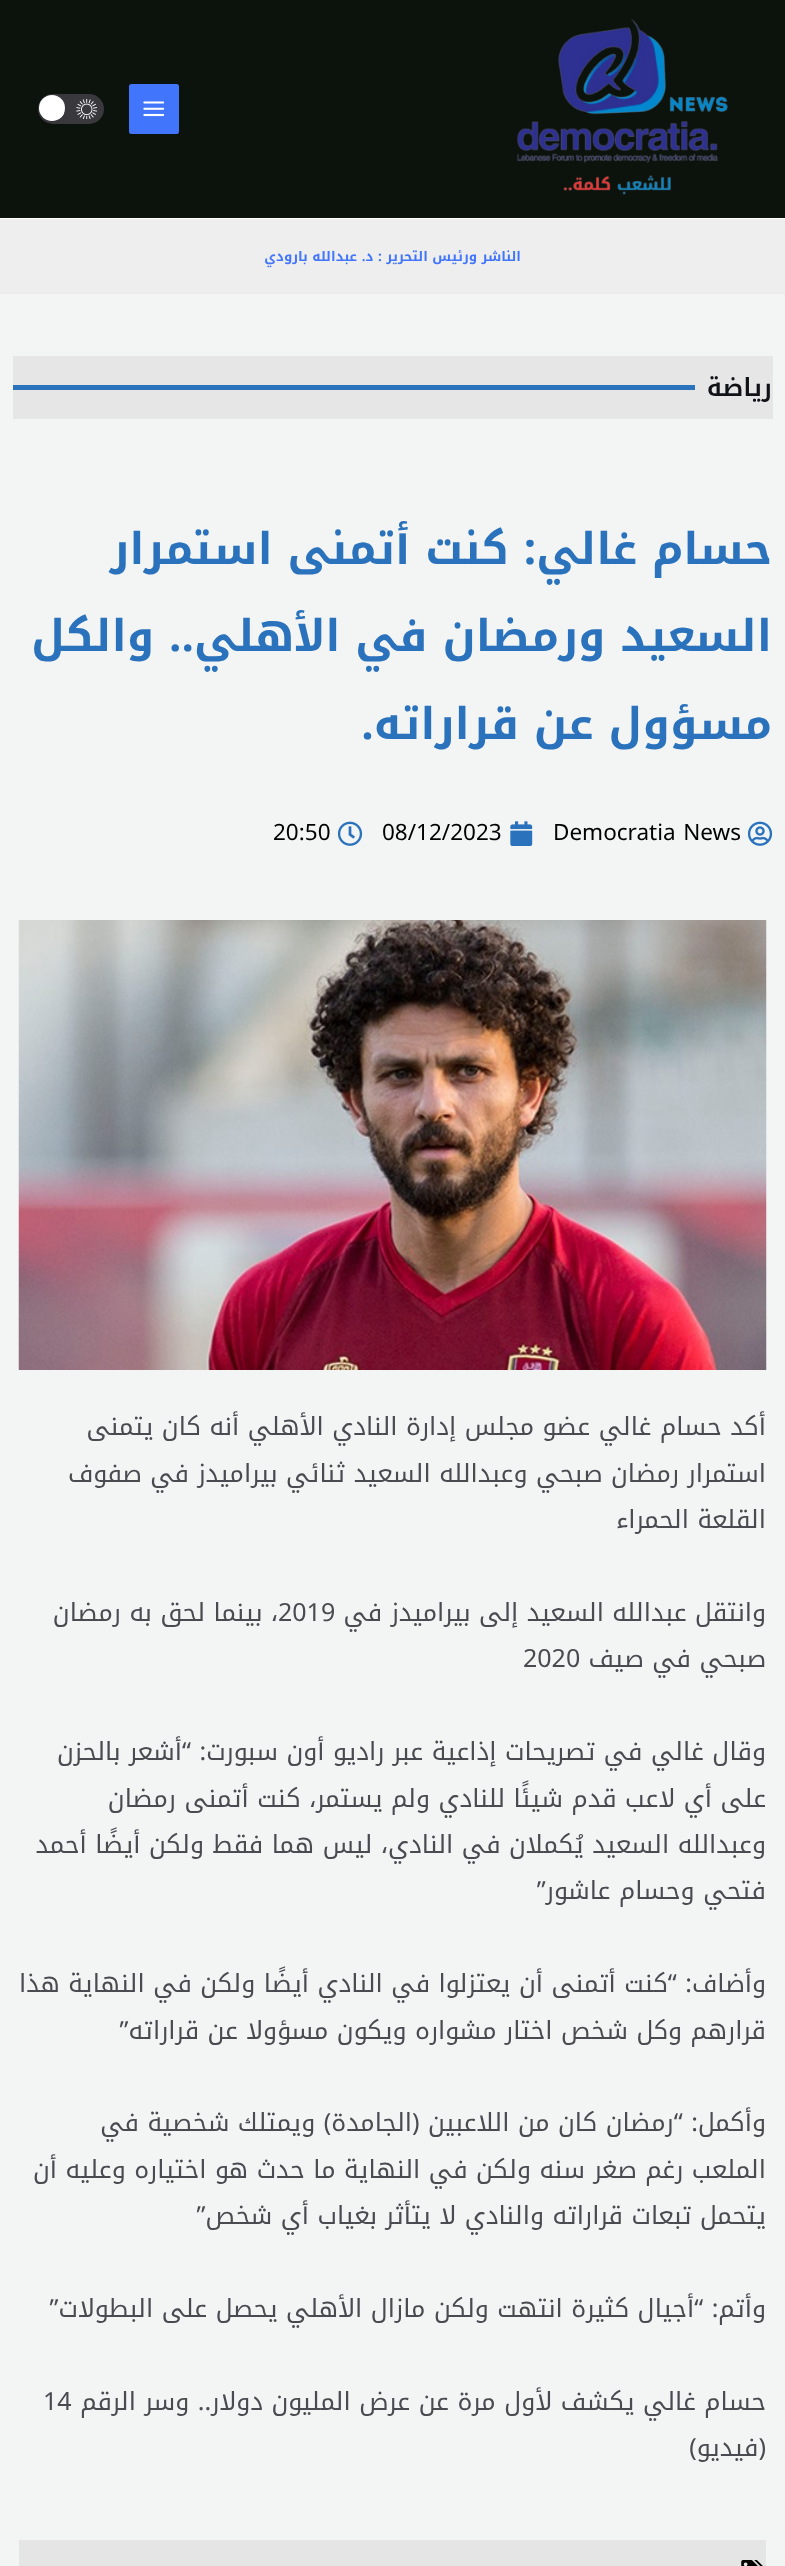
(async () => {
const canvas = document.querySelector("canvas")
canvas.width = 785
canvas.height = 2566
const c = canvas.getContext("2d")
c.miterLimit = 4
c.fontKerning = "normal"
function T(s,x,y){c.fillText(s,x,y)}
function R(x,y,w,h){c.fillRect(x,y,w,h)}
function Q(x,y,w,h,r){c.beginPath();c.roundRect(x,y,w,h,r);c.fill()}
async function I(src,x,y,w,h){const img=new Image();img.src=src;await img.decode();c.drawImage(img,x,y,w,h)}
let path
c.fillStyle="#f3f5f5"
R(0,0,785,2566)
c.fillStyle="#0c120c"
R(0,0,785,218)
c.fillStyle="#fff"
R(0,218,785,1)
await I("1.png",516,18,212,177)
c.fillStyle="#4175fc"
Q(129,84,50,50,2.5)
await I("2.png",143,101,22,16)
c.fillStyle="#39393d"
Q(38,94,66,30,15)
path = new Path2D("M63.5 113c-7.5 3-16-5-12.5-13c-11 4.5-5 22 6.5 18.5c3-1 5-3 6-5.5z")
c.strokeStyle="#fff"
c.lineWidth=1.3
c.lineCap="round"
c.lineJoin="round"
c.stroke(path)
c.fillStyle="#0000001a"
c.filter="blur(4px)"
c.beginPath()
c.roundRect(44,105,16,16,8)
c.fill()
c.filter="none"
c.fillStyle="#fff"
c.beginPath()
c.arc(52,108,13,0,7)
c.fill()
await I("3.png",76,99,22,20)
c.fillStyle="#eee"
R(0,219,785,74)
c.fillStyle="#eaeaea"
R(0,293,785,1)
c.direction="rtl"
c.font="bold 13.3px Noto Kufi Arabic"
c.fillStyle="#4175fc"
T("الناشر ورئيس التحرير : د. عبدالله بارودي",521,261)
c.fillStyle="#e6e6e6"
R(13,356,760,63)
c.font="600 25px Noto Kufi Arabic"
c.fillStyle="#101218"
T("رياضة",772,396)
c.fillStyle="#2b72bd"
R(13,385,682,5)
c.font="bold 43.75px Noto Kufi Arabic"
T("حسام غالي: كنت أتمنى استمرار",772,564)
T("السعيد ورمضان في الأهلي.. والكل",772,651)
T("مسؤول عن قراراته.",772,739)
await I("4.png",748,821,25,25)
c.direction="ltr"
c.font="22.5px Noto Kufi Arabic"
c.fillStyle="#000"
T("Democratia News",553,840)
await I("5.png",510,821,23,25)
T("08/12/2023",382,840)
await I("6.png",338,821,25,25)
T("20:50",273,840)
await I("7.png",18,920,749,450)
c.direction="rtl"
c.font="25px Noto Kufi Arabic"
c.fillStyle="#494b51"
T("أكد حسام غالي عضو مجلس إدارة النادي الأهلي أنه كان يتمنى",766,1435)
T("استمرار رمضان صبحي وعبدالله السعيد ثنائي بيراميدز في صفوف",766,1482)
T("القلعة الحمراء",766,1528)
T("وانتقل عبدالله السعيد إلى بيراميدز في",766,1621)
c.direction="ltr"
T("2019",278,1621)
c.direction="rtl"
T("، بينما لحق به رمضان",278,1621)
T("صبحي في صيف",766,1667)
c.direction="ltr"
T("2020",523,1667)
c.direction="rtl"
T("وقال غالي في تصريحات إذاعية عبر راديو أون سبورت: “أشعر بالحزن",766,1760)
T("على أي لاعب قدم شيئًا للنادي ولم يستمر، كنت أتمنى رمضان",766,1807)
T("وعبدالله السعيد يُكملان في النادي، ليس هما فقط ولكن أيضًا أحمد",766,1853)
T("فتحي وحسام عاشور”",766,1899)
T("وأضاف: “كنت أتمنى أن يعتزلوا في النادي أيضًا ولكن في النهاية هذا",766,1992)
T("قرارهم وكل شخص اختار مشواره ويكون مسؤولا عن قراراته”",766,2039)
T("وأكمل: “رمضان كان من اللاعبين (الجامدة) ويمتلك شخصية في",766,2131)
T("الملعب رغم صغر سنه ولكن في النهاية ما حدث هو اختياره وعليه أن",766,2178)
T("يتحمل تبعات قراراته والنادي لا يتأثر بغياب أي شخص”",766,2224)
T("وأتم: “أجيال كثيرة انتهت ولكن مازال الأهلي يحصل على البطولات”",766,2317)
T("حسام غالي يكشف لأول مرة عن عرض المليون دولار.. وسر الرقم",766,2410)
c.direction="ltr"
T("14",43,2410)
c.direction="rtl"
T("(فيديو)",766,2456)
c.fillStyle="#e5e5e5"
R(19,2540,747,26)
await I("8.png",741,2560,22,6)
})()
